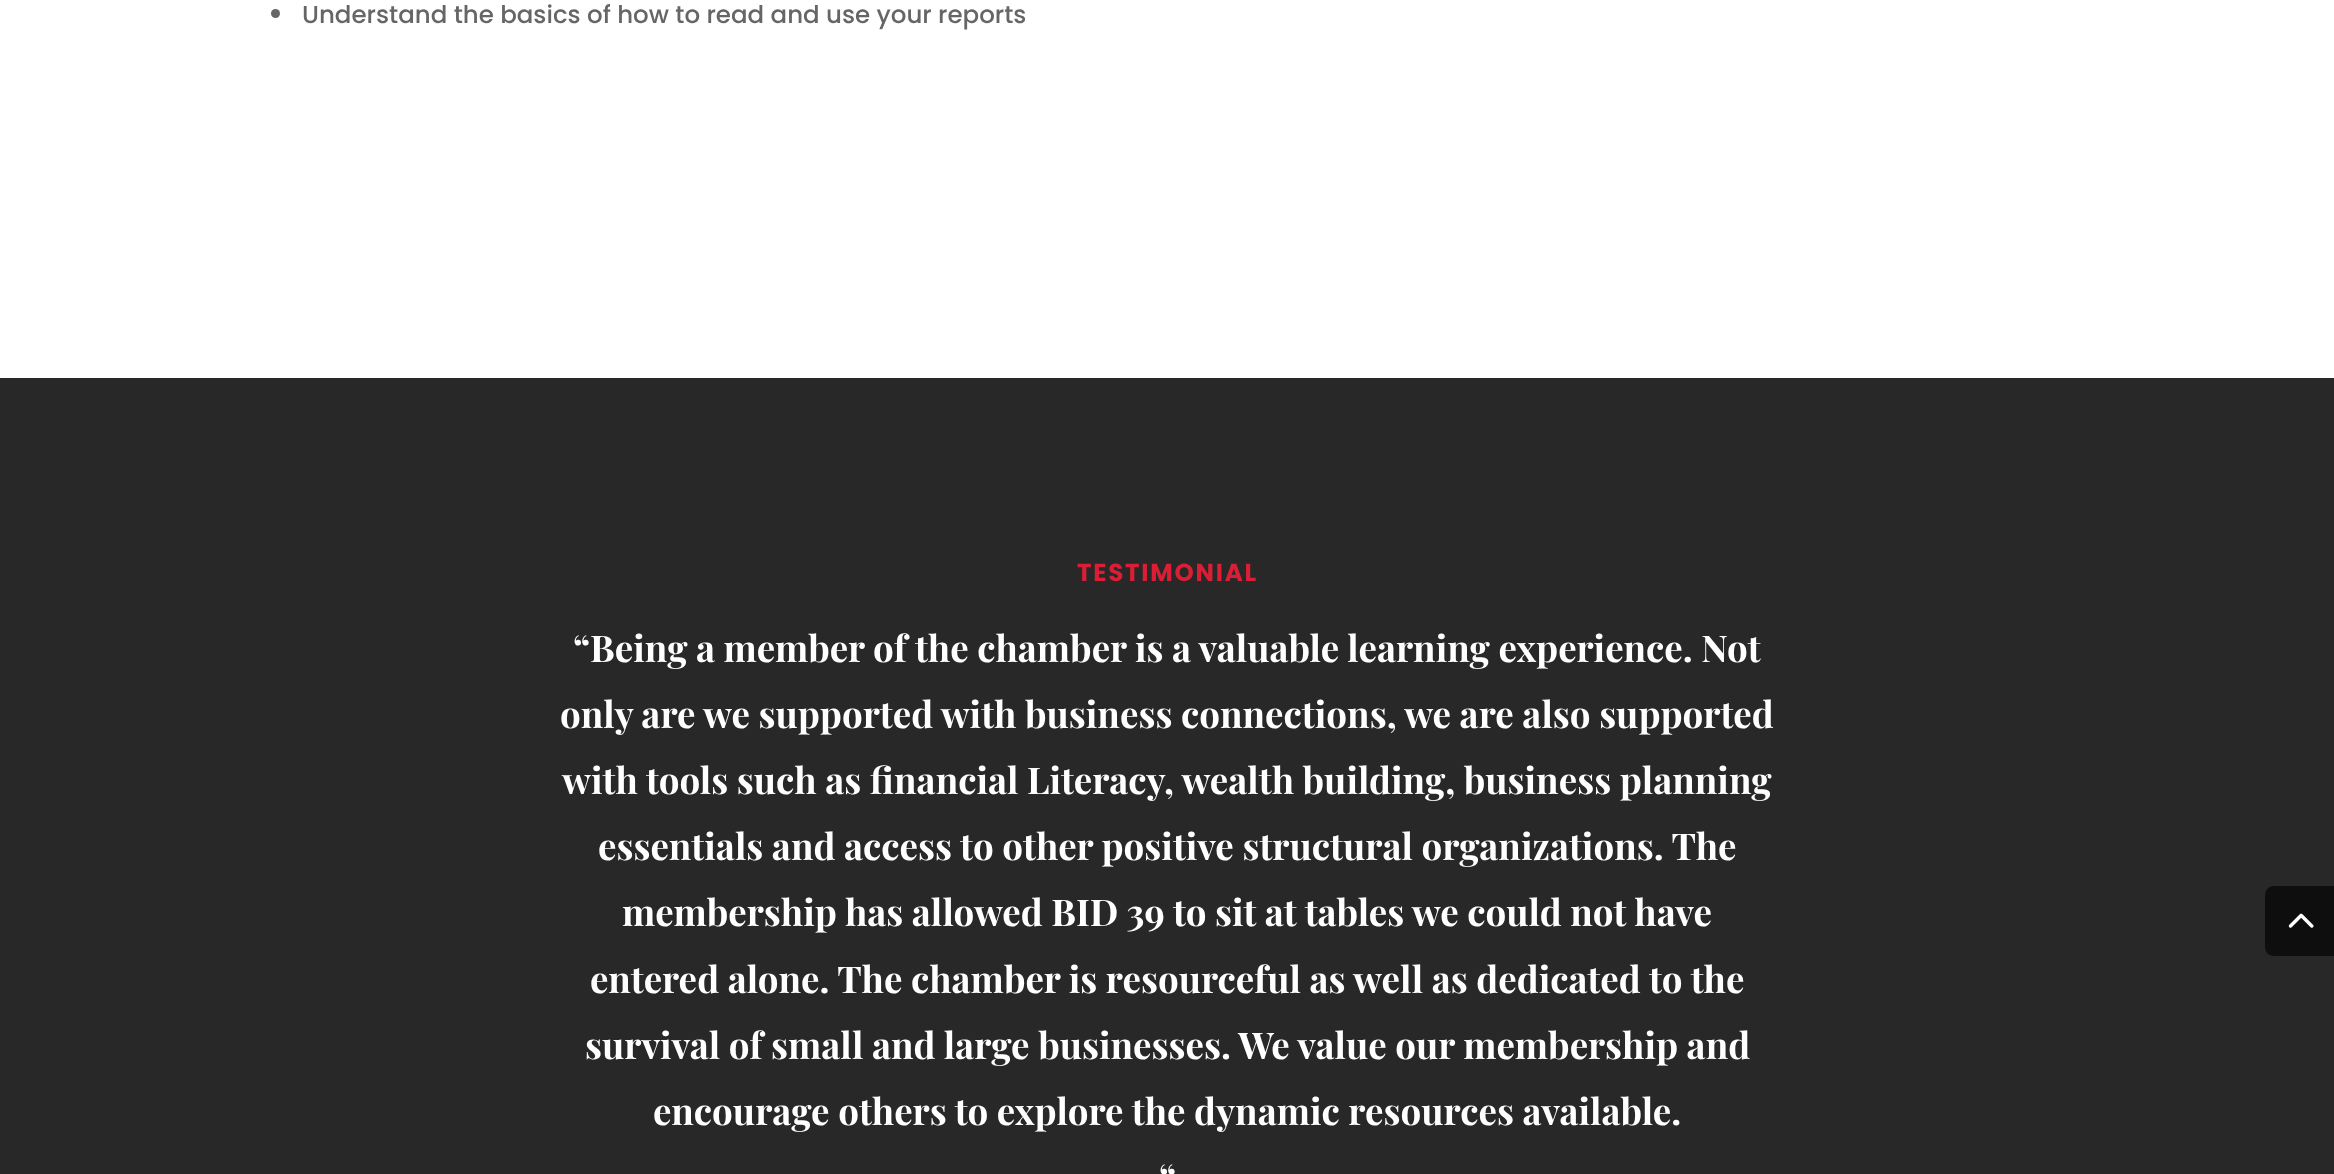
(async () => {
const canvas = document.querySelector("canvas")
canvas.width = 2334
canvas.height = 1174
const c = canvas.getContext("2d")
c.miterLimit = 4
c.fontKerning = "normal"
function T(s,x,y){c.fillText(s,x,y)}
function R(x,y,w,h){c.fillRect(x,y,w,h)}
async function I(src,x,y,w,h){const img=new Image();img.src=src;await img.decode();c.drawImage(img,x,y,w,h)}
let path
c.fillStyle="#fff"
R(0,0,2334,1174)
c.fillStyle="#666"
c.beginPath()
c.arc(275.5,13.5,4.5,0,7)
c.fill()
c.font="500 24.5px Poppins"
T("Understand the basics of how to read and use your reports",302,23)
c.fillStyle="#282828"
R(0,378,2334,796)
c.letterSpacing="1.75px"
c.font="bold 24.5px Poppins"
c.fillStyle="#da1e35"
T("TESTIMONIAL",1077,581)
c.letterSpacing="0px"
c.font="bold 36.75px Playfair Display"
c.fillStyle="#fff"
T("“Being a member of the chamber is a valuable learning experience. Not",573,662)
T("only are we supported with business connections, we are also supported",560,728)
T("with tools such as financial Literacy, wealth building, business planning",562,794)
T("essentials and access to other positive structural organizations. The",598,860)
T("membership has allowed BID 39 to sit at tables we could not have",622,926)
T("entered alone. The chamber is resourceful as well as dedicated to the",590,993)
T("survival of small and large businesses. We value our membership and",585,1059)
T("encourage others to explore the dynamic resources available.",653,1125)
T("“",1159,1191)
c.fillStyle="#181818"
path = new Path2D("M2274 886h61v70h-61c-5 0-9-4-9-9v-52c0-5 4-9 9-9z")
c.fill(path)
await I("1.png",2288,913,26,15)
c.fillStyle="#00000066"
path = new Path2D("M2274 886h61v70h-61c-5 0-9-4-9-9v-52c0-5 4-9 9-9z")
c.fill(path)
await I("2.png",2288,913,26,15)
})()
